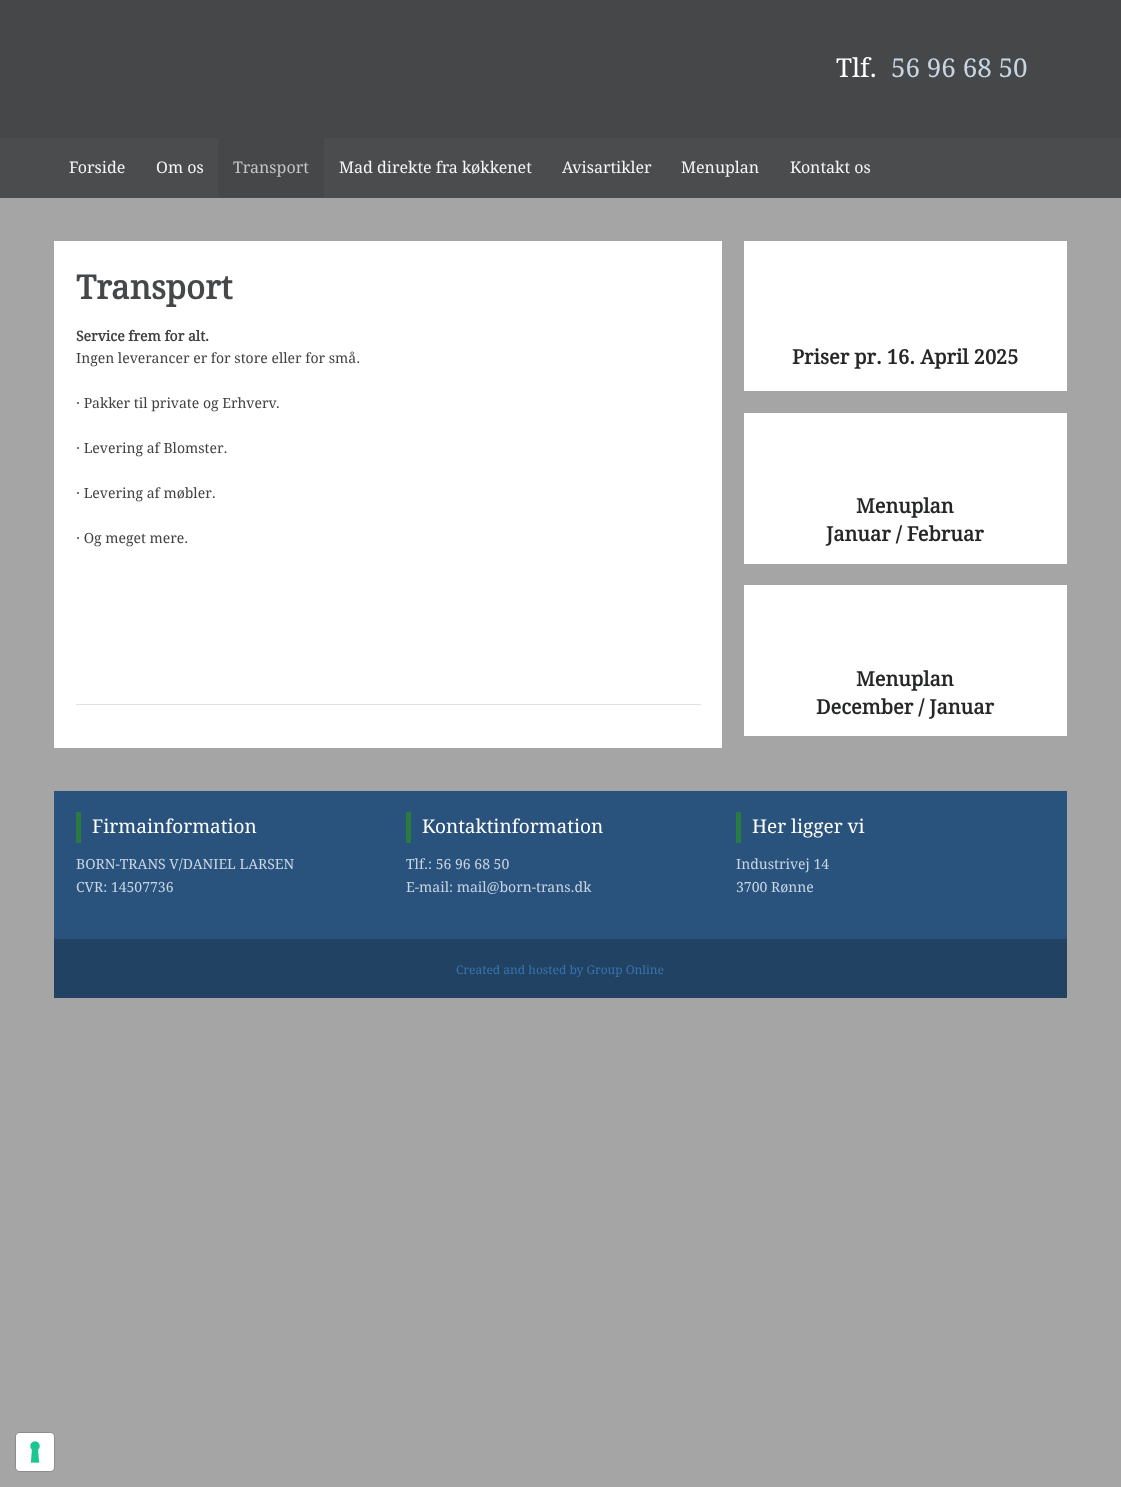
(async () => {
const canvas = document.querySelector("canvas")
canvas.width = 1121
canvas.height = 1487
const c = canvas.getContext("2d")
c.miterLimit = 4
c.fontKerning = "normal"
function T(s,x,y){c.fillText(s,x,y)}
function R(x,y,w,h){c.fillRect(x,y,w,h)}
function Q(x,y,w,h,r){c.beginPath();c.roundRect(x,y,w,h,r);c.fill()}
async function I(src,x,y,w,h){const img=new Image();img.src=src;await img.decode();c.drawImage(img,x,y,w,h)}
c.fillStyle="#a5a5a5"
R(0,0,1121,1487)
c.fillStyle="#454749"
R(0,0,1121,138)
c.font="26px Droid Serif"
c.fillStyle="#fff"
T("Tlf.",836,77)
c.fillStyle="#c7d5e3"
T("56 96 68 50",891,77)
c.fillStyle="#4b4c4d"
R(0,138,1121,60)
c.font="16px Droid Serif"
c.fillStyle="#f5f5f5"
T("Forside",69,173)
T("Om os",156,173)
c.fillStyle="#454749"
R(218,138,106,59)
c.fillStyle="#c5c5c5"
T("Transport",233,173)
c.fillStyle="#f5f5f5"
T("Mad direkte fra køkkenet",339,173)
T("Avisartikler",562,173)
T("Menuplan",681,173)
T("Kontakt os",790,173)
c.fillStyle="#fff"
R(54,241,668,507)
c.font="bold 33px Droid Serif"
c.fillStyle="#454749"
T("Transport",76,299)
c.fillStyle="#e1e1e1"
R(76,704,625,1)
c.font="bold 14px Droid Serif"
c.fillStyle="#414141"
T("Service frem for alt.",76,341)
c.font="14px Droid Serif"
T("Ingen leverancer er for store eller for små.",76,363)
T("· Pakker til private og Erhverv.",76,408)
T("· Levering af Blomster.",76,453)
T("· Levering af møbler.",76,498)
T("· Og meget mere.",76,543)
c.fillStyle="#fff"
R(744,241,323,150)
c.font="bold 20px Droid Serif"
c.fillStyle="#252627"
T("Priser pr. 16. April 2025",792,364)
c.fillStyle="#fff"
R(744,413,323,151)
c.fillStyle="#252627"
T("Menuplan",856,513)
T("Januar / Februar",826,541)
c.fillStyle="#fff"
R(744,585,323,151)
c.fillStyle="#252627"
T("Menuplan",856,686)
T("December / Januar",816,714)
c.fillStyle="#29527c"
R(54,791,1013,148)
c.fillStyle="#297c40"
R(76,812,5,31)
c.font="19px Droid Serif"
c.fillStyle="#fff"
T("Firmainformation",92,833)
c.font="14px Droid Serif"
c.fillStyle="#c7d5e3"
T("BORN-TRANS V/DANIEL LARSEN",76,869)
T("CVR: 14507736",76,892)
c.fillStyle="#297c40"
R(406,812,5,31)
c.font="19px Droid Serif"
c.fillStyle="#fff"
T("Kontaktinformation",422,833)
c.font="14px Droid Serif"
c.fillStyle="#c7d5e3"
T("Tlf.: 56 96 68 50",406,869)
T("E-mail: mail@born-trans.dk",406,892)
c.fillStyle="#297c40"
R(736,812,5,31)
c.font="19px Droid Serif"
c.fillStyle="#fff"
T("Her ligger vi",752,833)
c.font="14px Droid Serif"
c.fillStyle="#c7d5e3"
T("Industrivej 14",736,869)
T("3700 Rønne",736,892)
c.fillStyle="#214263"
R(54,939,1013,59)
c.font="12px Droid Serif"
c.fillStyle="#3973ae"
T("Created and hosted by Group Online",456,974)
c.beginPath()
c.roundRect(15.5,1432.5,39,39,4.5)
c.strokeStyle="#8c8c8c"
c.stroke()
c.fillStyle="#fff"
Q(16,1433,38,38,4)
await I("1.png",30,1441,10,22)
})()
